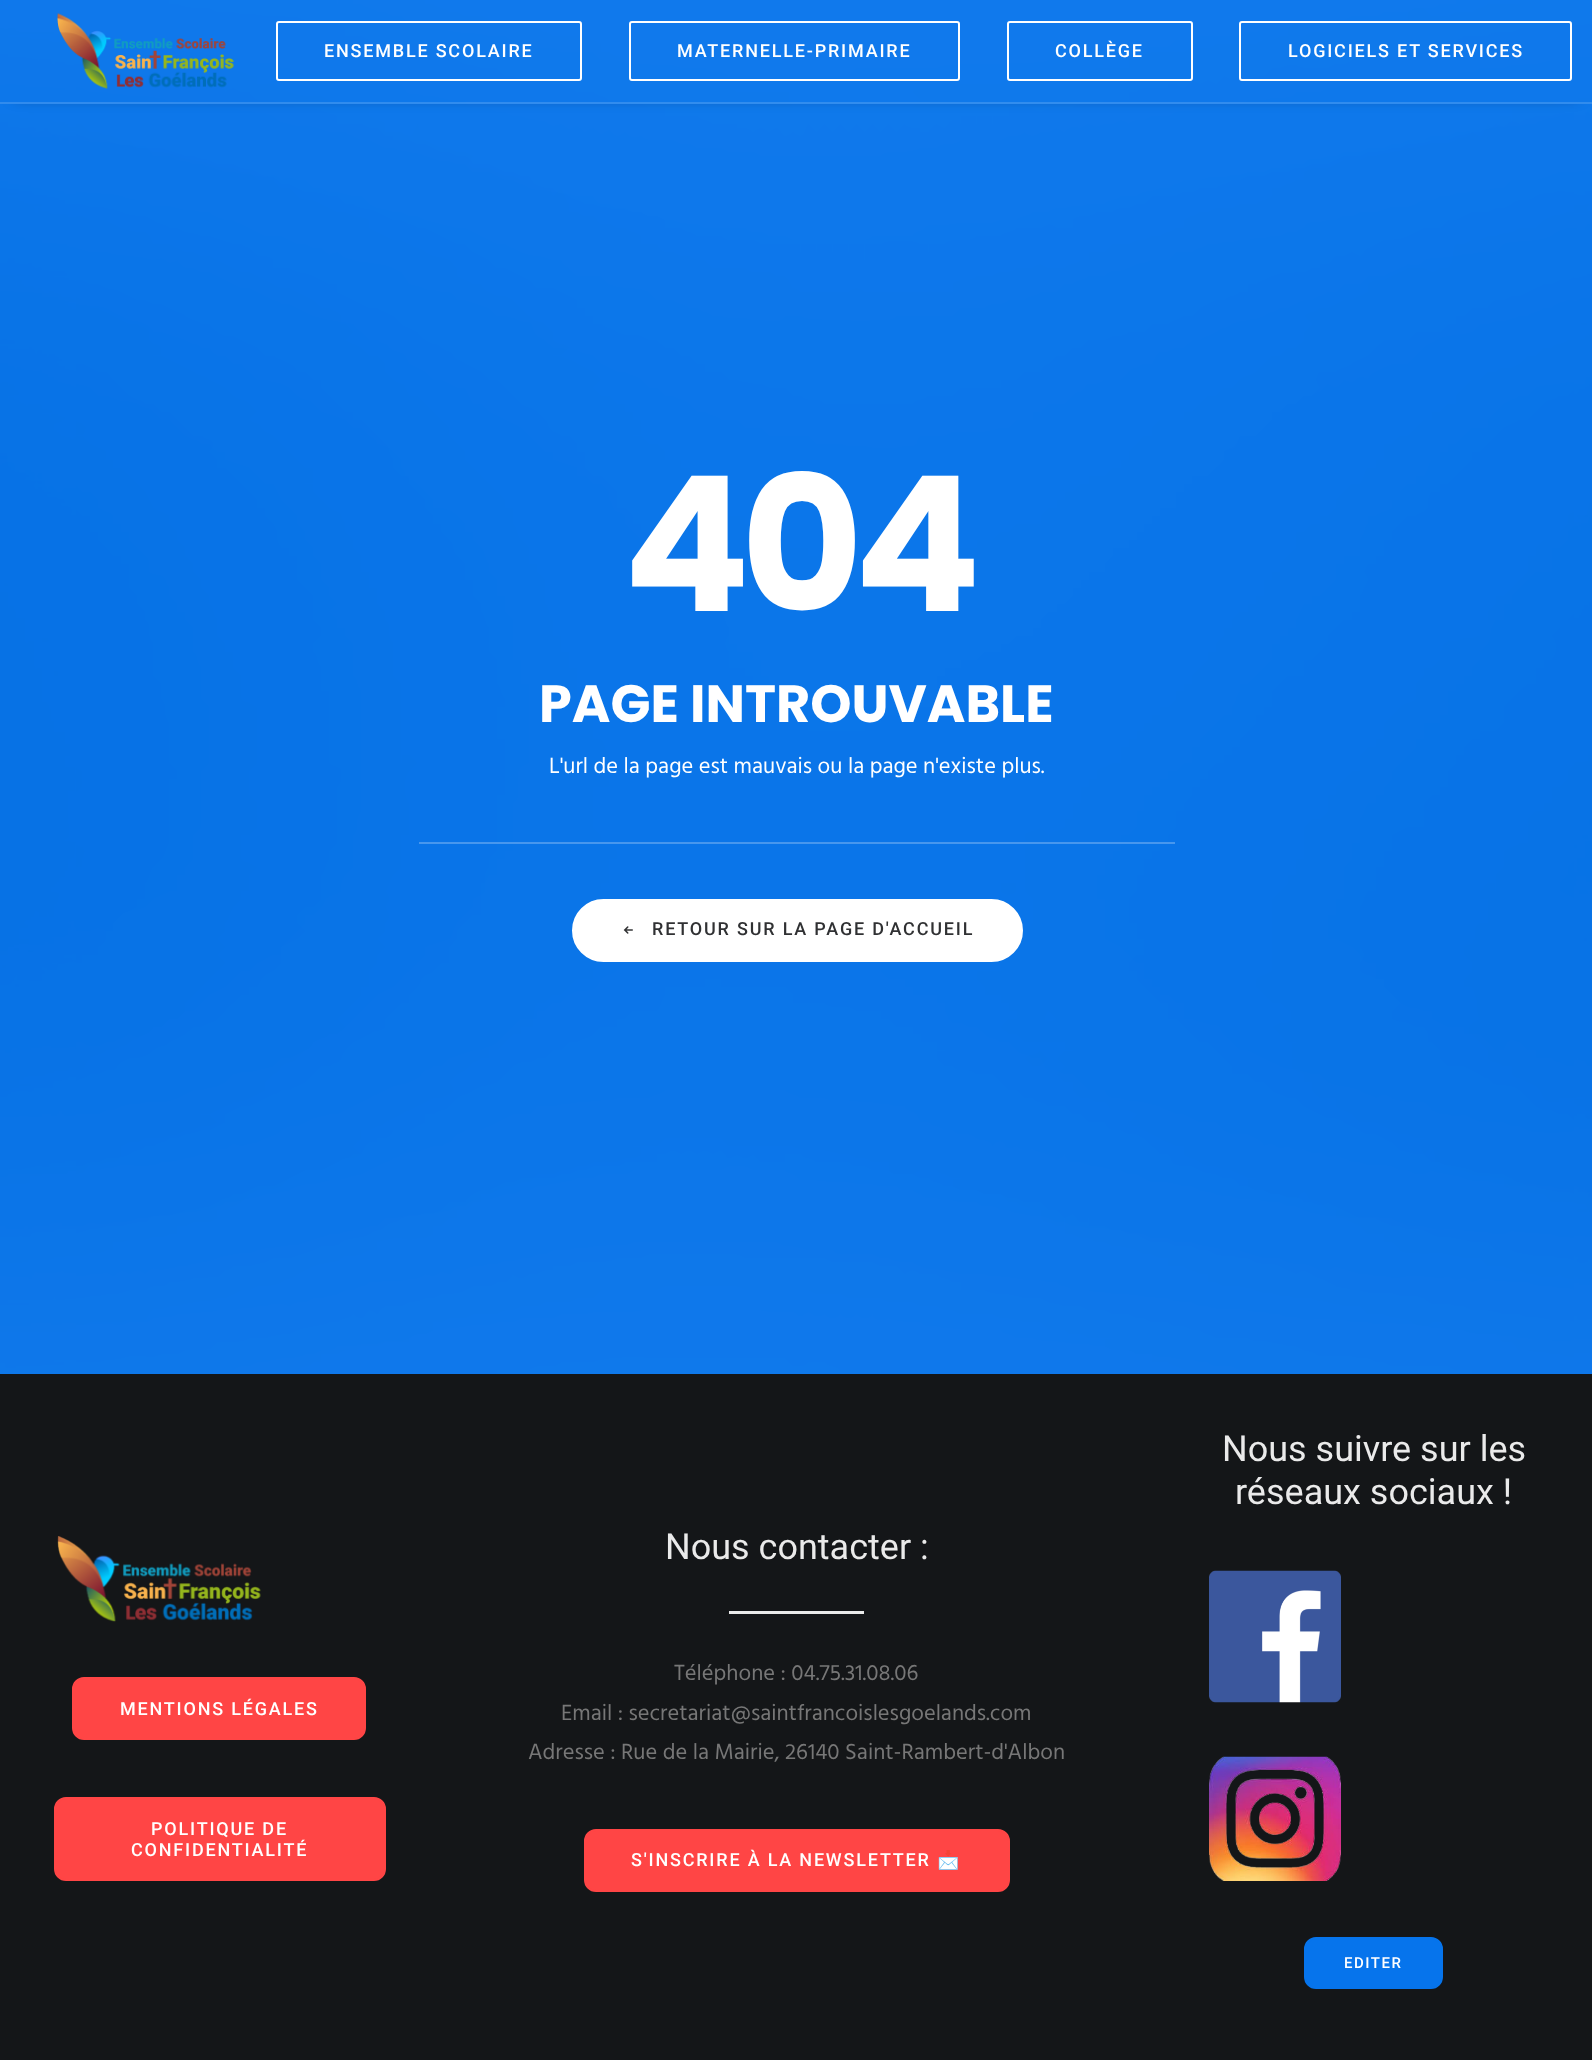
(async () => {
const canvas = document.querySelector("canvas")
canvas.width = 1592
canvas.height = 2060
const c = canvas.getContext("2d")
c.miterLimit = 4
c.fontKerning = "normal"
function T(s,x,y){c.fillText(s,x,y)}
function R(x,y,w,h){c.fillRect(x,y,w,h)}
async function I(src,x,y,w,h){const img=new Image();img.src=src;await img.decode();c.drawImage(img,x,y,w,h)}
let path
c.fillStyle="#141618"
R(0,0,1592,2060)
await I("2.png",0,0,1592,1374)
await I("3.png",76,0,1498,1374)
c.save()
path = new Path2D("M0 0h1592v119h-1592zm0 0h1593v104h-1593z")
c.clip(path,"evenodd")
c.fillStyle="#00000099"
c.filter="blur(7.5px)"
c.beginPath()
c.rect(15,21,1563,74)
c.fill()
c.filter="none"
c.restore()
c.fillStyle="#ffffff26"
R(0,102,1592,2)
await I("1.png",57,13,177,76)
c.beginPath()
c.roundRect(277,22,304,58,2)
c.strokeStyle="#fff"
c.lineWidth=2
c.stroke()
c.letterSpacing="1.8px"
c.font="500 18px Roboto"
c.fillStyle="#fff"
T("ENSEMBLE SCOLAIRE",324,57)
c.beginPath()
c.roundRect(630,22,329,58,2)
c.stroke()
T("MATERNELLE-PRIMAIRE",677,57)
c.beginPath()
c.roundRect(1008,22,184,58,2)
c.stroke()
T("COLLÈGE",1055,57)
c.beginPath()
c.roundRect(1240,22,331,58,2)
c.stroke()
T("LOGICIELS ET SERVICES",1288,57)
c.letterSpacing="-9.5px"
c.font="bold 188px Poppins"
T("404",623,611)
c.letterSpacing="0px"
c.font="bold 52.5px Poppins"
T("PAGE INTROUVABLE",539,722)
c.font="22.5px Hind"
T("L'url de la page est mauvais ou la page n'existe plus.",549,773)
c.fillStyle="#4797ee"
R(419,842,756,2)
c.fillStyle="#fff"
c.beginPath()
c.roundRect(573,900,449,61,30.5)
c.fill()
c.stroke()
await I("4.png",623,926,10,8)
c.letterSpacing="1.8px"
c.font="500 18px Roboto"
c.fillStyle="#303133"
T("RETOUR SUR LA PAGE D'ACCUEIL",652,935)
await I("5.png",57,1536,204,86)
c.fillStyle="#ff4545"
c.beginPath()
c.roundRect(73,1678,292,61,11)
c.fill()
c.strokeStyle="#ff4545"
c.stroke()
c.fillStyle="#fff"
T("MENTIONS LÉGALES",120,1715)
c.fillStyle="#ff4545"
c.beginPath()
c.roundRect(55,1798,330,82,11)
c.fill()
c.stroke()
c.fillStyle="#fff"
T("POLITIQUE DE",151,1835)
T("CONFIDENTIALITÉ",131,1856)
c.letterSpacing="0px"
c.font="36px Roboto"
c.fillStyle="#eaeaea"
T("Nous contacter :",665,1559)
R(729,1611,135,3)
c.font="22.5px Hind"
c.fillStyle="#777"
T("Téléphone : 04.75.31.08.06",674,1680)
T("Email : secretariat@saintfrancoislesgoelands.com",561,1720)
T("Adresse : Rue de la Mairie, 26140 Saint-Rambert-d'Albon",528,1759)
c.fillStyle="#ff4545"
c.beginPath()
c.roundRect(585,1830,424,61,11)
c.fill()
c.stroke()
c.letterSpacing="1.8px"
c.font="500 18px Roboto"
c.fillStyle="#fff"
T("S'INSCRIRE À LA NEWSLETTER",631,1866)
c.font="18px Noto Color Emoji"
T("📩",937,1866)
c.letterSpacing="0px"
c.font="36px Roboto"
c.fillStyle="#eaeaea"
T("Nous suivre sur les",1222,1461)
T("réseaux sociaux !",1235,1504)
await I("6.png",1209,1570,132,133)
await I("7.png",1209,1756,132,125)
c.fillStyle="#0674ec"
c.beginPath()
c.roundRect(1305,1938,137,50,11)
c.fill()
c.strokeStyle="#0674ec"
c.stroke()
c.letterSpacing="1.5px"
c.font="500 15px Roboto"
c.fillStyle="#fff"
T("EDITER",1344,1968)
})()
